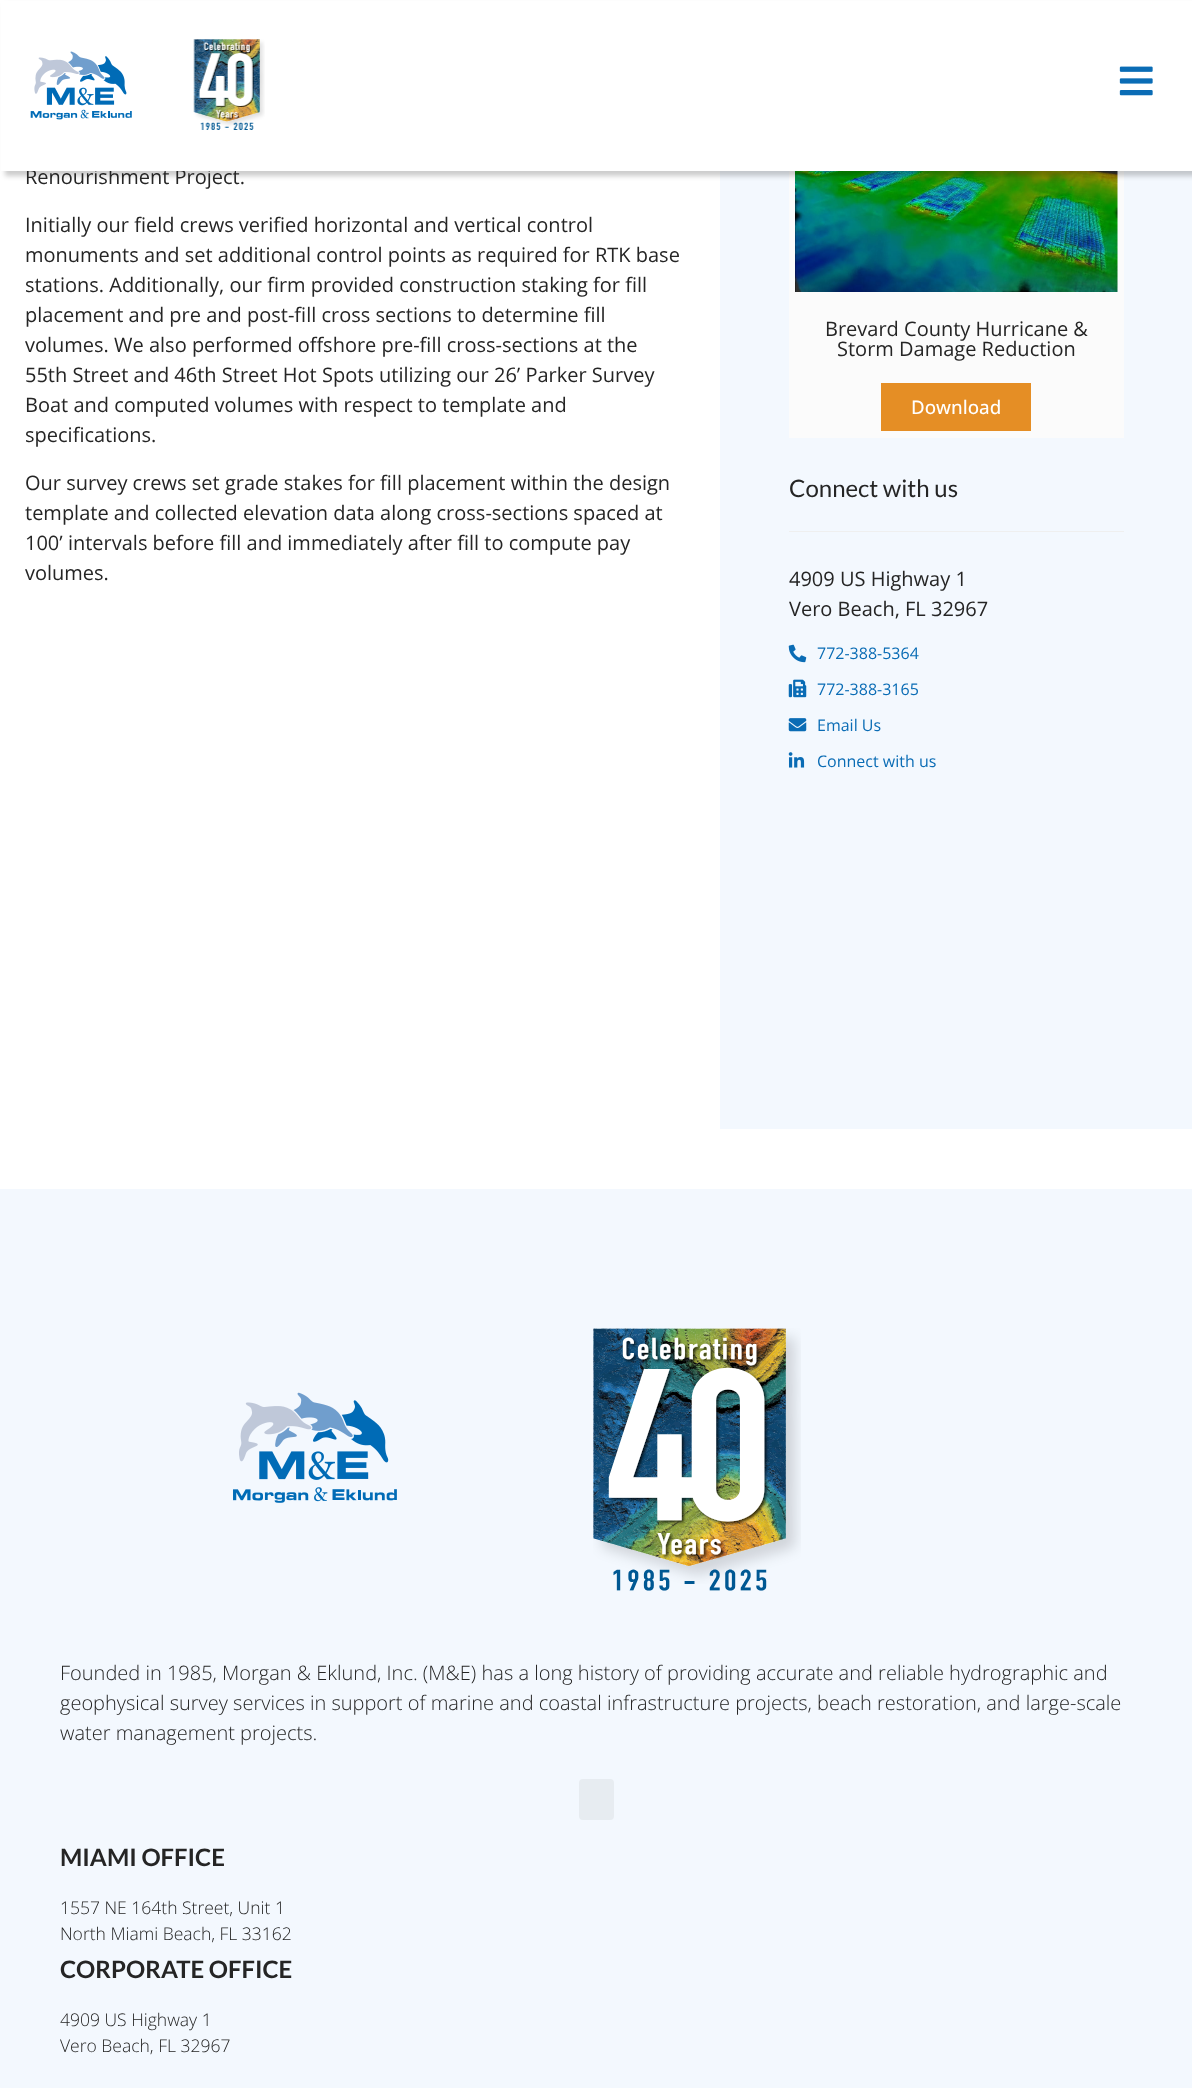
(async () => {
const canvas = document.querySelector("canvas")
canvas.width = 1192
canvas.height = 2088
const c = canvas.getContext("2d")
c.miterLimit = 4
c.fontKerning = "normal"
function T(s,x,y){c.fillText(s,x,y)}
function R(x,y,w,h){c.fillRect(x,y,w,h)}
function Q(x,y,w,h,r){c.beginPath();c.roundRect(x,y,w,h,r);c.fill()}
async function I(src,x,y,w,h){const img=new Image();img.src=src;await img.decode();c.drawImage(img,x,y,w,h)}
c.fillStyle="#fff"
R(0,0,1192,2088)
c.fillStyle="#f3f8fe"
R(720,171,472,958)
c.fillStyle="#fbfbfb"
R(789,171,335,267)
await I("4.png",795,171,323,121)
c.fillStyle="#00000033"
c.filter="blur(2.5px)"
c.beginPath()
c.rect(5,5,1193,171)
c.fill()
c.filter="none"
c.font="20px Open Sans"
c.fillStyle="#252525"
T("Renourishment Project.",25,184)
c.fillStyle="#fff"
R(1,1,1191,170)
await I("1.png",30,51,102,69)
await I("2.png",193,39,72,91)
await I("3.png",1119,66,34,30)
c.fillStyle="#252525"
T("Initially our field crews verified horizontal and vertical control",25,232)
T("monuments and set additional control points as required for RTK base",25,262)
T("stations. Additionally, our firm provided construction staking for fill",25,292)
T("placement and pre and post-fill cross sections to determine fill",25,322)
T("volumes. We also performed offshore pre-fill cross-sections at the",25,352)
T("55th Street and 46th Street Hot Spots utilizing our 26’ Parker Survey",25,382)
T("Boat and computed volumes with respect to template and",25,412)
T("specifications.",25,442)
T("Our survey crews set grade stakes for fill placement within the design",25,490)
T("template and collected elevation data along cross-sections spaced at",25,520)
T("100’ intervals before fill and immediately after fill to compute pay",25,550)
T("volumes.",25,580)
T("Brevard County Hurricane &",825,336)
T("Storm Damage Reduction",837,356)
c.fillStyle="#e58e25"
R(881,383,150,48)
c.font="500 18.75px Open Sans"
c.fillStyle="#fff"
T("Download",911,414)
c.font="24px Lato"
c.fillStyle="#252525"
T("Connect with us",789,497)
c.fillStyle="#efefef"
R(789,531,335,1)
c.font="20px Open Sans"
c.fillStyle="#252525"
T("4909 US Highway 1",789,586)
T("Vero Beach, FL 32967",789,616)
await I("5.png",788,644,19,19)
c.font="16px Open Sans"
c.fillStyle="#0a6cb5"
T("772-388-5364",817,659)
await I("6.png",788,679,19,19)
T("772-388-3165",817,695)
await I("7.png",788,718,19,14)
T("Email Us",817,731)
await I("8.png",788,752,17,16)
T("Connect with us",817,767)
c.fillStyle="#f3f8fe"
R(0,1189,1192,899)
await I("9.png",233,1392,164,111)
await I("10.png",593,1328,208,263)
c.font="300 20px Open Sans"
c.fillStyle="#252525"
T("Founded in 1985, Morgan & Eklund, Inc. (M&E) has a long history of providing accurate and reliable hydrographic and",60,1680)
T("geophysical survey services in support of marine and coastal infrastructure projects, beach restoration, and large-scale",60,1710)
T("water management projects.",60,1740)
c.fillStyle="#e7ecf1"
Q(579,1779,35,41,4)
c.font="bold 24px Lato"
c.fillStyle="#252525"
T("MIAMI OFFICE",60,1866)
c.font="300 17.5px Open Sans"
T("1557 NE 164th Street, Unit 1",60,1914)
T("North Miami Beach, FL 33162",60,1940)
c.font="bold 24px Lato"
T("CORPORATE OFFICE",60,1978)
c.font="300 17.5px Open Sans"
T("4909 US Highway 1",60,2026)
T("Vero Beach, FL 32967",60,2052)
})()
